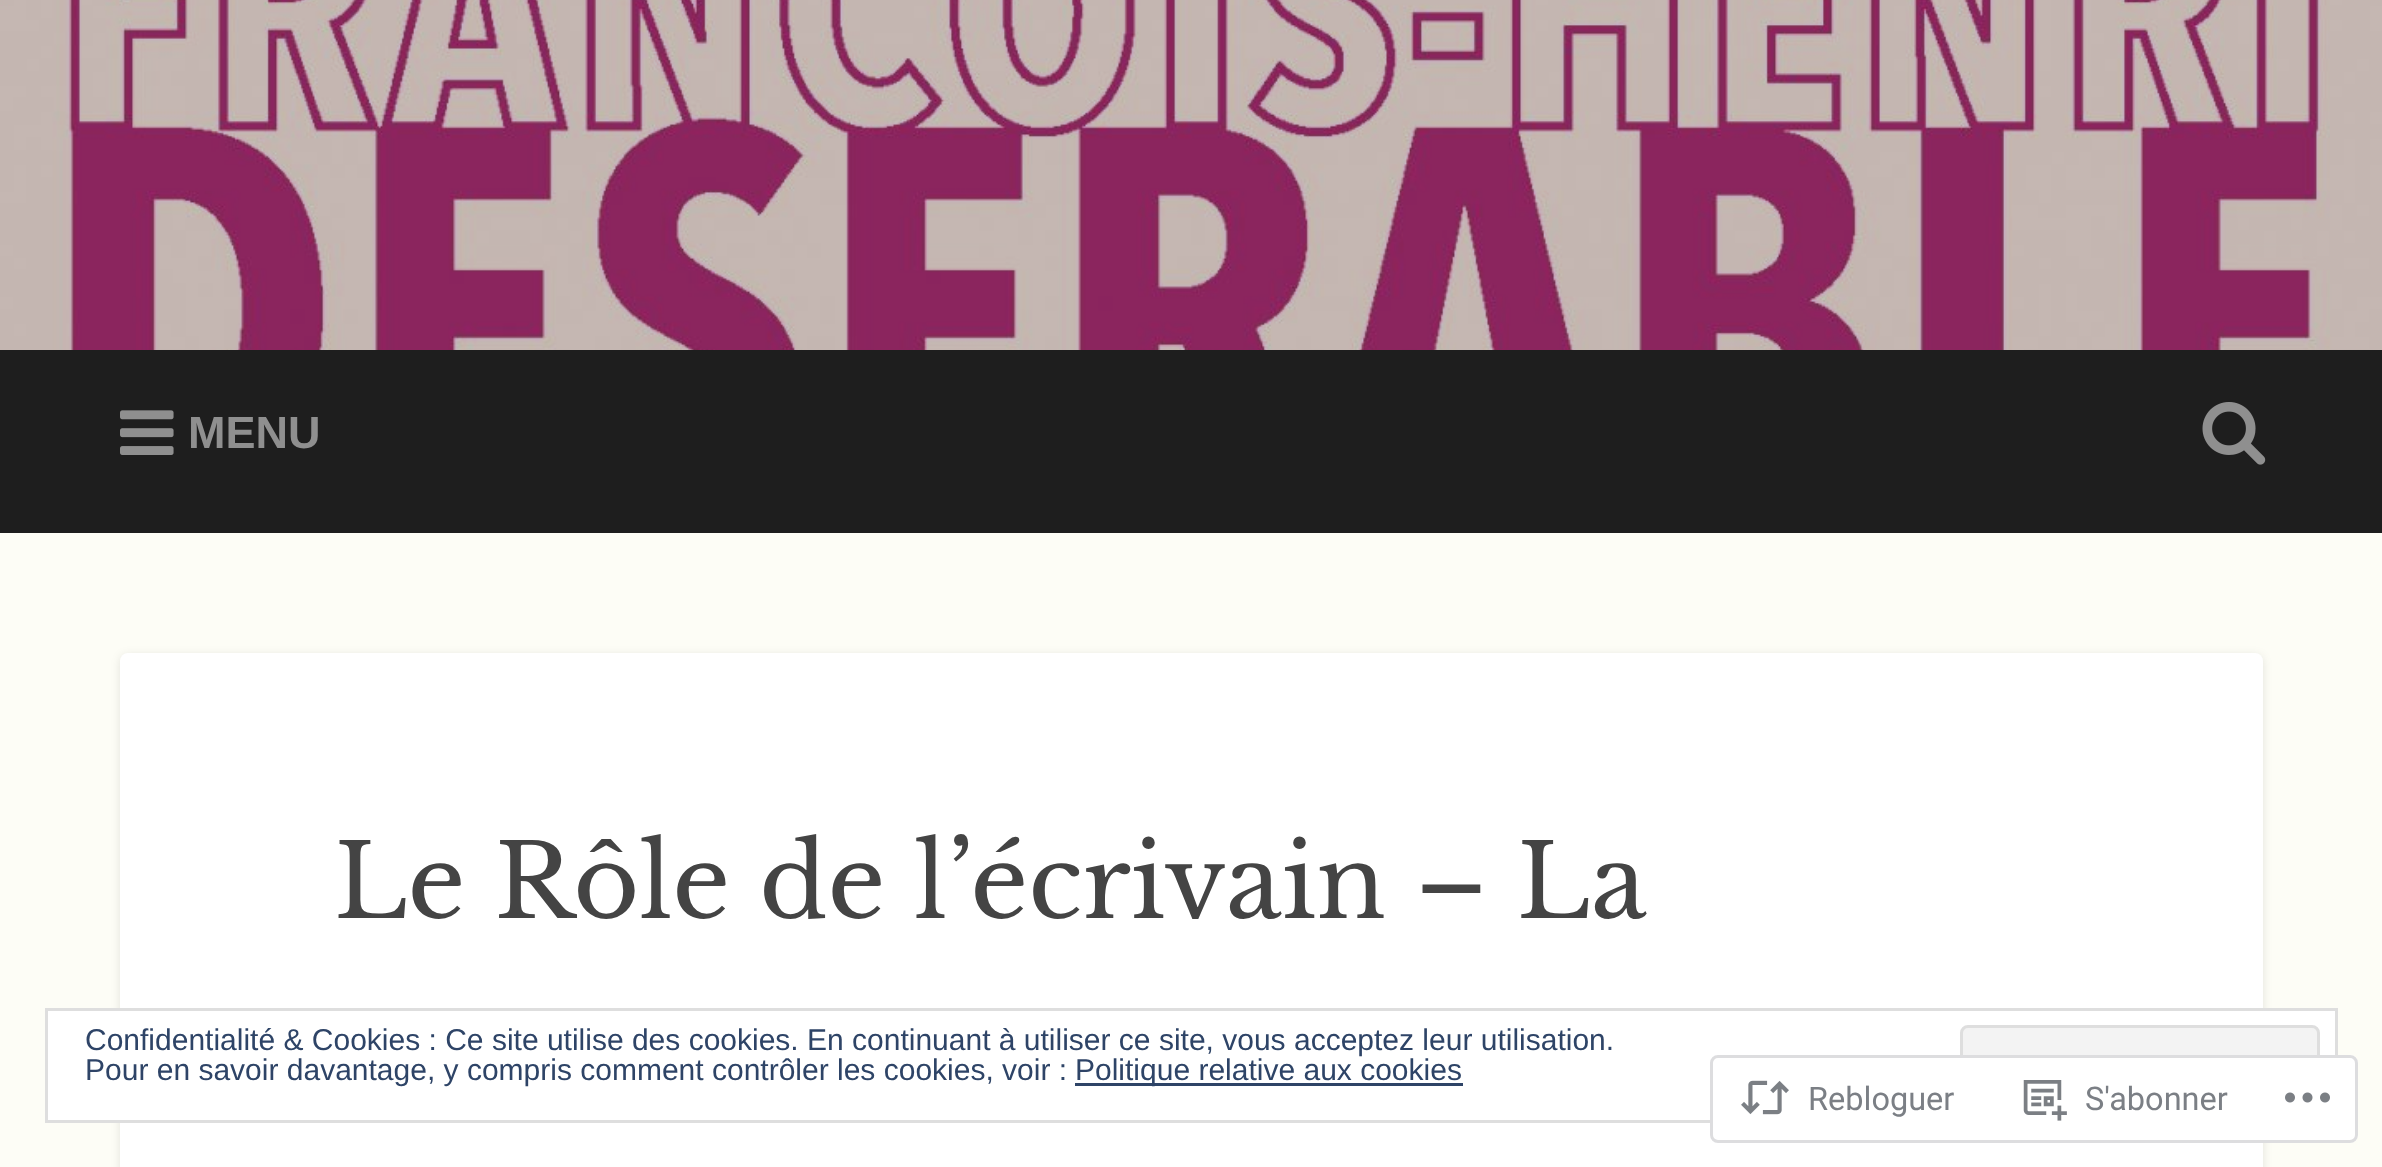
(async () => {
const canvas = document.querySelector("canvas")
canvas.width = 2382
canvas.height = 1167
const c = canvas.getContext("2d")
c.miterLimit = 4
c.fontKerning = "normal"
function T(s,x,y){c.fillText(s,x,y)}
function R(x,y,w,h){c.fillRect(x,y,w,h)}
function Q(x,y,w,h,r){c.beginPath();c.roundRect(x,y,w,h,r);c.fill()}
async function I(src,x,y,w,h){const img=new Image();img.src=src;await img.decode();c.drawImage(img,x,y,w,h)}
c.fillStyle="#fdfdf6"
R(0,0,2382,1167)
await I("1.png",0,0,2382,350)
c.fillStyle="#1e1e1e"
R(0,350,2382,183)
await I("2.png",120,410,54,45)
c.font="bold 45px Arimo"
c.fillStyle="#8f8f8f"
T("MENU",188,448)
await I("3.png",2202,402,64,63)
c.fillStyle="#0000001a"
c.filter="blur(5px)"
c.beginPath()
c.roundRect(120,655,2143,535,8)
c.fill()
c.filter="none"
c.fillStyle="#fff"
Q(120,653,2143,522,8)
c.wordSpacing="-0.25px"
c.font="101.25px Libre Baskerville"
c.fillStyle="#444"
T("Le Rôle de l’écrivain – La",334,918)
c.fillStyle="#fff"
c.beginPath()
c.rect(46.5,1009.5,2290,112)
c.fill()
c.strokeStyle="#dedede"
c.lineWidth=3
c.stroke()
c.wordSpacing="0px"
c.font="30px Arimo"
c.fillStyle="#2e4467"
T("Confidentialité & Cookies : Ce site utilise des cookies. En continuant à utiliser ce site, vous acceptez leur utilisation.",85,1050)
c.fillStyle="#f3f3f3"
c.beginPath()
c.roundRect(1961.5,1026.5,357,77,6.5)
c.fill()
c.stroke()
c.fillStyle="#2e4467"
T("Pour en savoir davantage, y compris comment contrôler les cookies, voir :",85,1080)
R(1075,1083,388,3)
T("Politique relative aux cookies",1075,1080)
c.fillStyle="#fffffffa"
Q(1710,1055,648,88,8)
c.beginPath()
c.roundRect(1711.5,1056.5,645,85,6.5)
c.strokeStyle="#dcdcdefa"
c.stroke()
await I("4.png",1741,1080,48,35)
c.font="32.5px Roboto"
c.fillStyle="#7b7f85"
T("Rebloguer",1808,1110)
await I("5.png",2023,1080,44,41)
T("S'abonner",2085,1110)
await I("6.png",2285,1092,45,11)
})()
